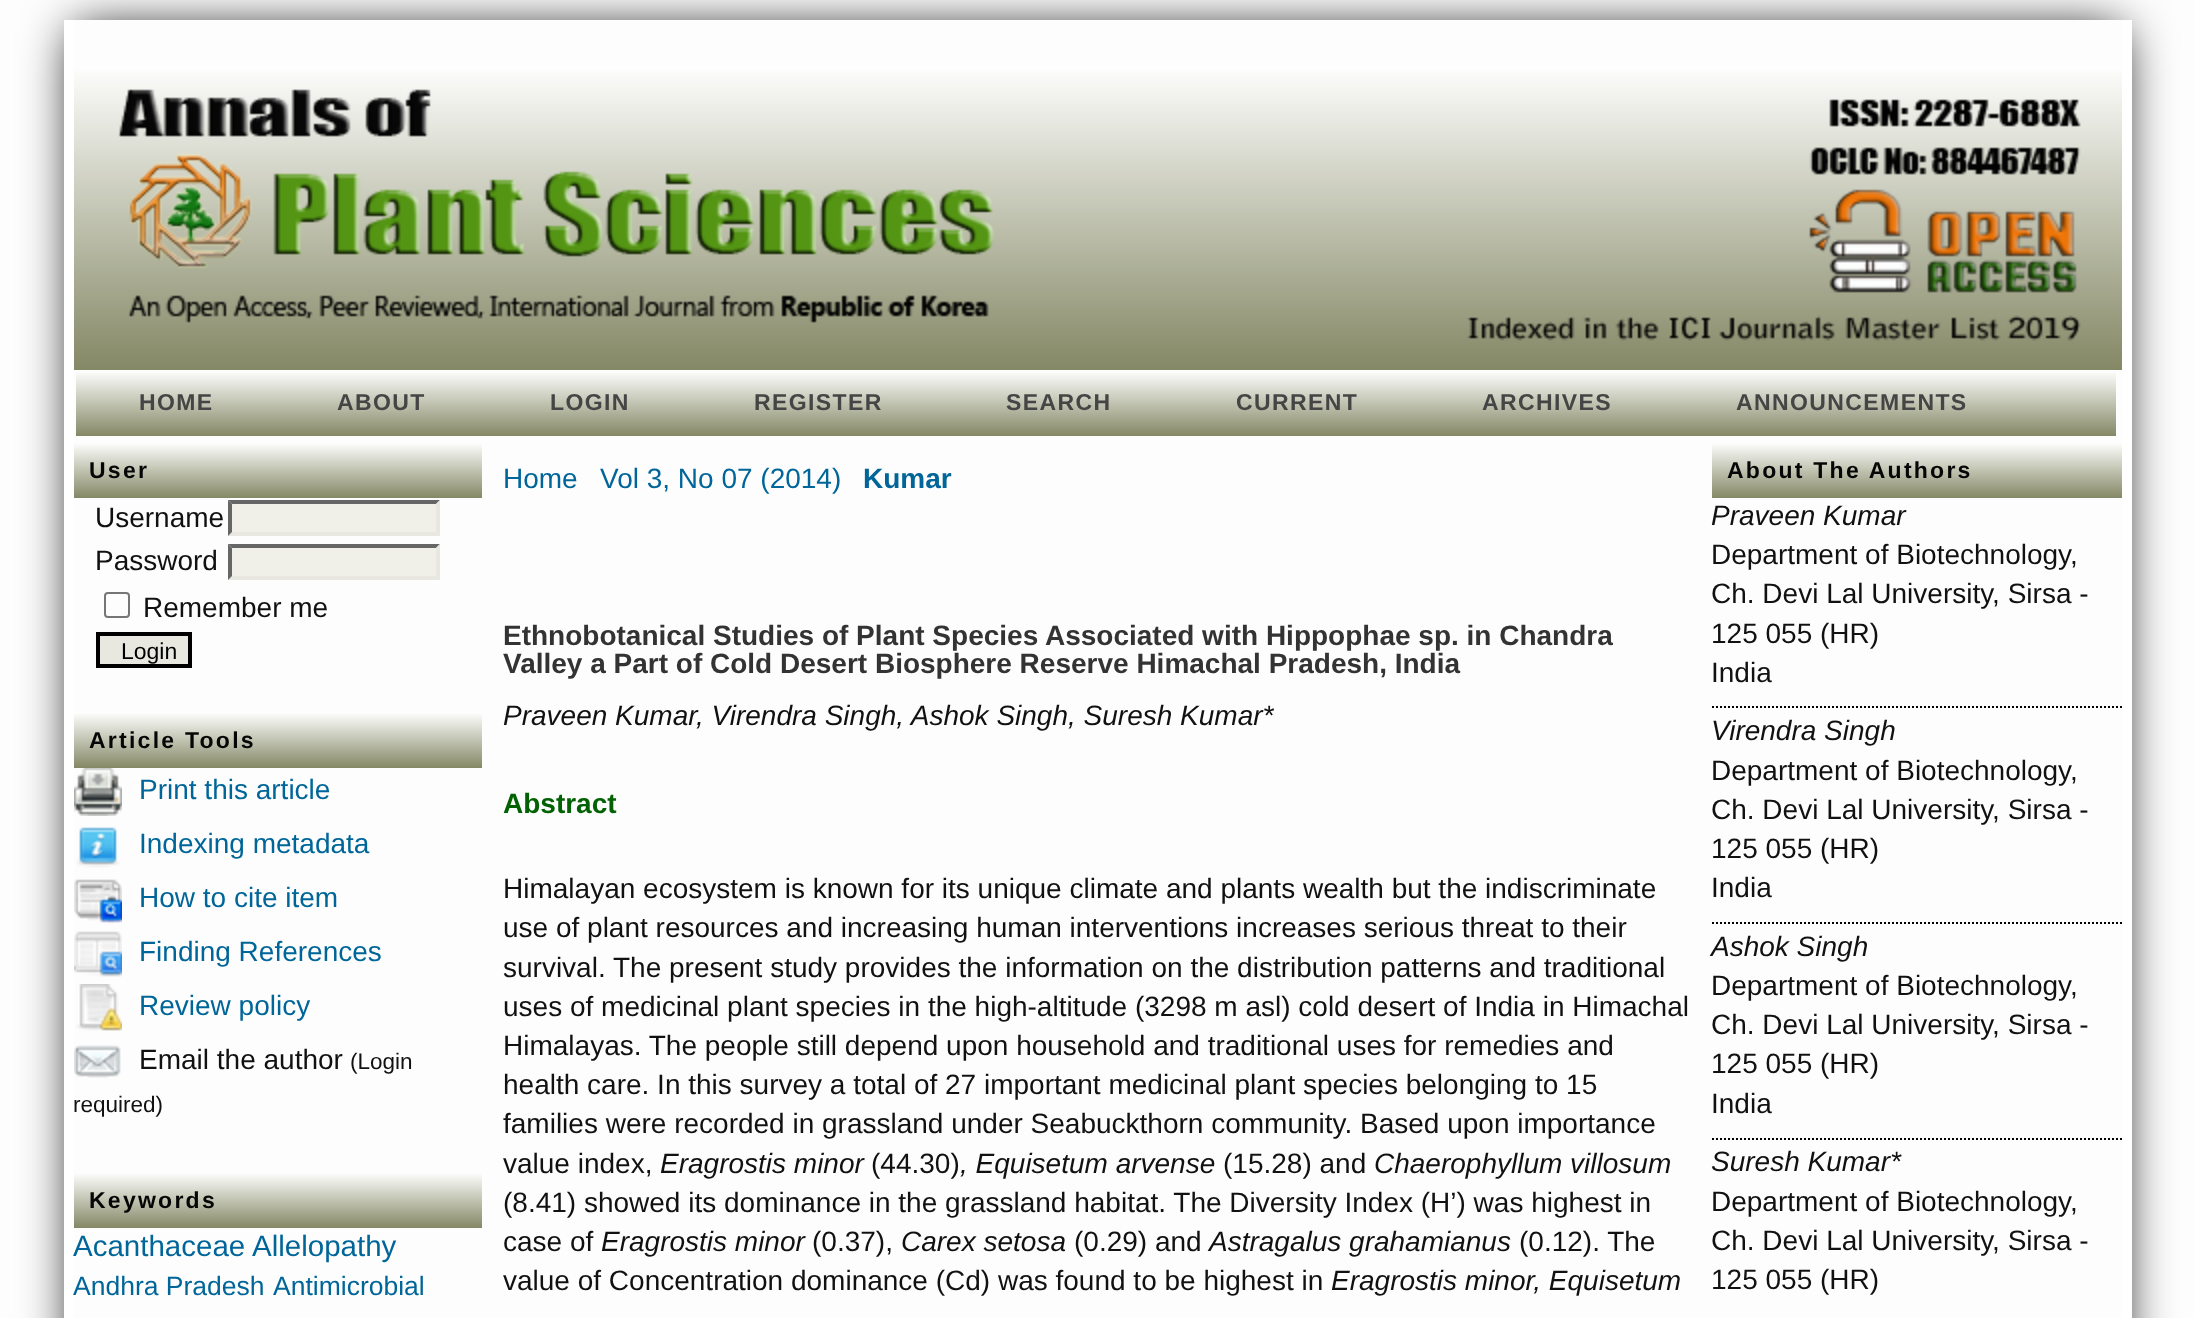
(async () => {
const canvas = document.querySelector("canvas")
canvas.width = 2194
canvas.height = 1318
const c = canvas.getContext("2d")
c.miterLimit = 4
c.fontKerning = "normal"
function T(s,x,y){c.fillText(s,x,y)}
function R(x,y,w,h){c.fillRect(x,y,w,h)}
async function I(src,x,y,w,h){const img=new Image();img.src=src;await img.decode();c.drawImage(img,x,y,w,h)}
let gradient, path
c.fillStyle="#fdfdfd"
R(0,0,2194,1318)
c.save()
path = new Path2D("M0 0h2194v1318h-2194zm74 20h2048v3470h-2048z")
c.clip(path,"evenodd")
c.fillStyle="#000"
c.filter="blur(25px)"
c.beginPath()
c.rect(74,30,2048,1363)
c.fill()
c.filter="none"
c.restore()
c.fillStyle="#fff"
R(64,20,10,1298)
R(2122,20,10,1298)
gradient = c.createLinearGradient(1098,62,1098,370)
gradient.addColorStop(0,"#fff")
gradient.addColorStop(1,"#848865")
c.fillStyle = gradient
R(74,71,2048,299)
await I("1.png",118,89,1963,252)
gradient = c.createLinearGradient(1096,370,1096,436)
gradient.addColorStop(0,"#fff")
gradient.addColorStop(1,"#848865")
c.fillStyle = gradient
R(76,372,2040,64)
c.letterSpacing="1.4px"
c.font="bold 23px Liberation Sans"
c.fillStyle="#464545"
T("HOME",139,410)
T("ABOUT",337,410)
T("LOGIN",550,410)
T("REGISTER",754,410)
T("SEARCH",1006,410)
T("CURRENT",1236,410)
T("ARCHIVES",1482,410)
T("ANNOUNCEMENTS",1736,410)
c.letterSpacing="0px"
c.font="28px Liberation Sans"
c.fillStyle="#069"
T("Home",503,488)
T("Vol 3, No 07 (2014)",600,488)
c.font="bold 28px Liberation Sans"
T("Kumar",863,488)
c.fillStyle="#333"
T("Ethnobotanical Studies of Plant Species Associated with Hippophae sp. in Chandra",503,645)
T("Valley a Part of Cold Desert Biosphere Reserve Himachal Pradesh, India",503,673)
c.font="italic 28px Liberation Sans"
c.fillStyle="#111"
T("Praveen Kumar, Virendra Singh, Ashok Singh, Suresh Kumar*",503,725)
c.font="bold 28px Liberation Sans"
c.fillStyle="#006202"
T("Abstract",503,813)
c.font="28px Liberation Sans"
c.fillStyle="#111"
T("Himalayan ecosystem is known for its unique climate and plants wealth but the indiscriminate",503,898)
T("use of plant resources and increasing human interventions increases serious threat to their",503,937)
T("survival. The present study provides the information on the distribution patterns and traditional",503,977)
T("uses of medicinal plant species in the high-altitude (3298 m asl) cold desert of India in Himachal",503,1016)
T("Himalayas. The people still depend upon household and traditional uses for remedies and",503,1055)
T("health care. In this survey a total of 27 important medicinal plant species belonging to 15",503,1094)
T("families were recorded in grassland under Seabuckthorn community. Based upon importance",503,1133)
T("value index,",503,1173)
c.font="italic 28px Liberation Sans"
T("Eragrostis minor",660,1173)
c.font="28px Liberation Sans"
T("(44.30)",871,1173)
c.font="italic 28px Liberation Sans"
T(", Equisetum arvense",960,1173)
c.font="28px Liberation Sans"
T("(15.28) and",1223,1173)
c.font="italic 28px Liberation Sans"
T("Chaerophyllum villosum",1374,1173)
c.font="28px Liberation Sans"
T("(8.41) showed its dominance in the grassland habitat. The Diversity Index (H’) was highest in",503,1212)
T("case of",503,1251)
c.font="italic 28px Liberation Sans"
T("Eragrostis minor",601,1251)
c.font="28px Liberation Sans"
T("(0.37),",812,1251)
c.font="italic 28px Liberation Sans"
T("Carex setosa",901,1251)
c.font="28px Liberation Sans"
T("(0.29) and",1074,1251)
c.font="italic 28px Liberation Sans"
T("Astragalus grahamianus",1209,1251)
c.font="28px Liberation Sans"
T("(0.12). The",1519,1251)
T("value of Concentration dominance (Cd) was found to be highest in",503,1290)
c.font="italic 28px Liberation Sans"
T("Eragrostis minor, Equisetum",1331,1290)
gradient = c.createLinearGradient(278,442,278,498)
gradient.addColorStop(0,"#fff")
gradient.addColorStop(1,"#848865")
c.fillStyle = gradient
R(74,444,408,54)
c.letterSpacing="2.25px"
c.font="bold 23px Liberation Sans"
c.fillStyle="#060606"
T("User",89,478)
c.letterSpacing="0px"
c.font="28px Liberation Sans"
c.fillStyle="#111"
T("Username",95,527)
c.fillStyle="#f0f0e8"
R(228,500,212,36)
c.fillStyle="#666"
path = new Path2D("M228 500h212l-4 4h-204z")
c.fill(path)
c.fillStyle="#e8e8e1"
path = new Path2D("M440 500v36l-4-4v-28z")
c.fill(path)
path = new Path2D("M440 536h-212l4-4h204z")
c.fill(path)
c.fillStyle="#666"
path = new Path2D("M228 536v-36l4 4v28z")
c.fill(path)
c.fillStyle="#111"
T("Password",95,570)
c.fillStyle="#f0f0e8"
R(228,544,212,36)
c.fillStyle="#666"
path = new Path2D("M228 544h212l-4 4h-204z")
c.fill(path)
c.fillStyle="#e8e8e1"
path = new Path2D("M440 544v36l-4-4v-28z")
c.fill(path)
path = new Path2D("M440 580h-212l4-4h204z")
c.fill(path)
c.fillStyle="#666"
path = new Path2D("M228 580v-36l4 4v28z")
c.fill(path)
c.beginPath()
c.roundRect(105,593,24,24,3)
c.strokeStyle="#767676"
c.lineWidth=2
c.stroke()
c.fillStyle="#111"
T("Remember me",143,617)
c.fillStyle="#e8e8e1"
c.beginPath()
c.rect(98,634,92,32)
c.fill()
c.strokeStyle="#000"
c.lineWidth=4
c.stroke()
c.font="23px Liberation Sans"
c.fillStyle="#000"
T("Login",121,659)
gradient = c.createLinearGradient(278,712,278,768)
gradient.addColorStop(0,"#fff")
gradient.addColorStop(1,"#848865")
c.fillStyle = gradient
R(74,714,408,54)
c.letterSpacing="2.25px"
c.font="bold 23px Liberation Sans"
c.fillStyle="#060606"
T("Article Tools",89,748)
await I("2.png",74,768,48,48)
c.letterSpacing="0px"
c.font="28px Liberation Sans"
c.fillStyle="#069"
T("Print this article",139,799)
await I("3.png",76,827,44,41)
T("Indexing metadata",139,853)
await I("4.png",74,879,48,44)
T("How to cite item",139,907)
await I("5.png",74,931,48,46)
T("Finding References",139,961)
await I("6.png",76,984,46,47)
T("Review policy",139,1015)
await I("7.png",74,1045,47,33)
c.fillStyle="#111"
T("Email the author",139,1069)
c.font="22.5px Liberation Sans"
T("(Login",350,1069)
T("required)",73,1112)
gradient = c.createLinearGradient(278,1172,278,1228)
gradient.addColorStop(0,"#fff")
gradient.addColorStop(1,"#848865")
c.fillStyle = gradient
R(74,1174,408,54)
c.letterSpacing="2.25px"
c.font="bold 23px Liberation Sans"
c.fillStyle="#060606"
T("Keywords",89,1208)
c.letterSpacing="0px"
c.font="29.5px Liberation Sans"
c.fillStyle="#069"
T("Acanthaceae",73,1256)
T("Allelopathy",252,1256)
c.font="26.5px Liberation Sans"
T("Andhra Pradesh",73,1295)
T("Antimicrobial",273,1295)
gradient = c.createLinearGradient(1917,442,1917,498)
gradient.addColorStop(0,"#fff")
gradient.addColorStop(1,"#848865")
c.fillStyle = gradient
R(1712,444,410,54)
c.letterSpacing="2.25px"
c.font="bold 23px Liberation Sans"
c.fillStyle="#060606"
T("About The Authors",1727,478)
c.letterSpacing="0px"
c.font="italic 28px Liberation Sans"
c.fillStyle="#111"
T("Praveen Kumar",1711,525)
c.font="28px Liberation Sans"
T("Department of Biotechnology,",1711,564)
T("Ch. Devi Lal University, Sirsa -",1711,603)
T("125 055 (HR)",1711,643)
T("India",1711,682)
path = new Path2D("M1712 707h410")
c.lineWidth=2
c.setLineDash([2,2])
c.stroke(path)
c.font="italic 28px Liberation Sans"
T("Virendra Singh",1711,740)
c.font="28px Liberation Sans"
T("Department of Biotechnology,",1711,780)
T("Ch. Devi Lal University, Sirsa -",1711,819)
T("125 055 (HR)",1711,858)
T("India",1711,897)
path = new Path2D("M1712 923h410")
c.stroke(path)
c.font="italic 28px Liberation Sans"
T("Ashok Singh",1711,956)
c.font="28px Liberation Sans"
T("Department of Biotechnology,",1711,995)
T("Ch. Devi Lal University, Sirsa -",1711,1034)
T("125 055 (HR)",1711,1073)
T("India",1711,1113)
path = new Path2D("M1712 1139h410")
c.stroke(path)
c.font="italic 28px Liberation Sans"
T("Suresh Kumar*",1711,1171)
c.font="28px Liberation Sans"
T("Department of Biotechnology,",1711,1211)
T("Ch. Devi Lal University, Sirsa -",1711,1250)
T("125 055 (HR)",1711,1289)
})()
